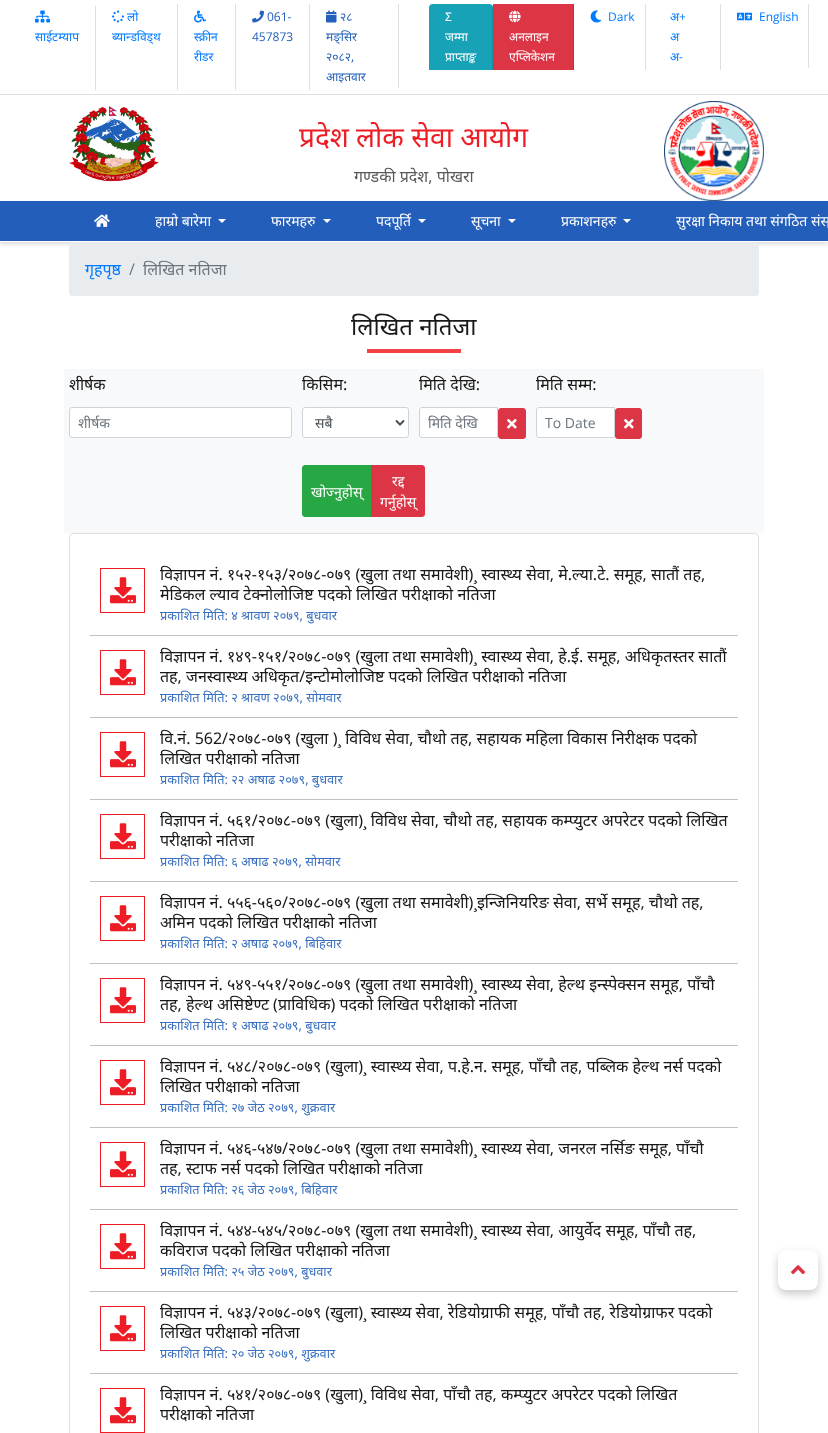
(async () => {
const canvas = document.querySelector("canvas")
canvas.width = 828
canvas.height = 1433
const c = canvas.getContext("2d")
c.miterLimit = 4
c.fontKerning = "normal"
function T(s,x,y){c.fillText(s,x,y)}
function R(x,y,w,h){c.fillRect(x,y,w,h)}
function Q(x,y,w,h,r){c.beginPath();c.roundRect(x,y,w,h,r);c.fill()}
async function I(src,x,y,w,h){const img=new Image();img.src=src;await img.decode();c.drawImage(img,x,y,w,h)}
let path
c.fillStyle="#fff"
R(0,0,828,1433)
c.fillStyle="#dfdfdf"
R(0,94,828,1)
R(95,6,1,84)
await I("1.png",35,10,15,13)
c.font="12px Noto Sans"
c.fillStyle="#007bff"
T("साईटम्याप",35,41)
c.fillStyle="#dfdfdf"
R(177,4,1,86)
await I("2.png",112,10,12,13)
c.fillStyle="#007bff"
T("लो",127,21)
T("ब्यान्डविड्थ",112,41)
c.fillStyle="#dfdfdf"
R(235,4,1,86)
await I("3.png",194,10,12,13)
c.fillStyle="#007bff"
T("स्क्रीन",194,41)
T("रीडर",194,61)
c.fillStyle="#dfdfdf"
R(309,4,1,86)
await I("4.png",252,10,12,13)
c.font="12px Open Sans"
c.fillStyle="#2460b9"
T("061-",267,21)
T("457873",252,41)
c.fillStyle="#dfdfdf"
R(398,4,1,84)
await I("5.png",326,10,11,13)
c.font="12px Noto Sans"
c.fillStyle="#2460b9"
T("२८",340,21)
T("मङ्सिर",326,41)
T("२०८२,",326,61)
T("आइतवार",326,81)
c.fillStyle="#17a2b8"
c.beginPath()
c.roundRect(429,4,64,66,[4,4,0,0])
c.fill()
c.fillStyle="#0000001f"
R(492,6,1,64)
c.fillStyle="#fff"
T("Σ",445,21)
T("जम्मा",445,41)
T("प्राप्ताङ्क",445,61)
c.fillStyle="#dc3545"
R(493,4,80,66)
c.fillStyle="#c12e3c"
R(573,4,1,66)
await I("6.png",509,10,12,13)
c.fillStyle="#fff"
T("अनलाइन",509,41)
T("एप्लिकेशन",509,61)
c.fillStyle="#dfdfdf"
R(645,4,1,66)
await I("7.png",590,10,12,13)
c.font="12px Open Sans"
c.fillStyle="#007bff"
T("Dark",608,21)
c.fillStyle="#dfdfdf"
R(720,4,1,66)
c.font="12px Noto Sans"
c.fillStyle="#007bff"
T("अ‌‌",670,21)
c.font="12px Open Sans"
T("+",679,21)
c.font="12px Noto Sans"
T("अ‌",670,41)
T("अ‌",670,61)
c.font="12px Open Sans"
T("-",679,61)
c.fillStyle="#dfdfdf"
R(808,4,1,64)
await I("8.png",737,12,15,9)
c.fillStyle="#007bff"
T("English",759,21)
c.save()
c.beginPath()
c.rect(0,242,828,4)
c.clip()
c.fillStyle="#00000026"
c.filter="blur(2px)"
c.beginPath()
c.rect(0,97,828,147)
c.fill()
c.filter="none"
c.restore()
await I("9.png",69,106,90,76)
c.font="28px Noto Sans"
c.fillStyle="#ee1d25"
T("प्रदेश लोक सेवा आयोग",299,147)
c.font="16px Noto Sans"
c.fillStyle="#5a5959"
T("गण्डकी प्रदेश, पोखरा",354,182)
await I("10.png",664,101,100,100)
c.fillStyle="#245ebb"
R(0,201,828,40)
await I("11.png",94,214,16,13)
c.font="14px Noto Sans"
c.fillStyle="#fff"
T("हाम्रो बारेमा",155,226)
path = new Path2D("M218 219h8l-4 4z")
c.fill(path)
T("फारमहरु",271,226)
path = new Path2D("M323 219h8l-4 4z")
c.fill(path)
T("पदपूर्ति",376,226)
path = new Path2D("M418 219h8l-4 4z")
c.fill(path)
T("सूचना",471,226)
path = new Path2D("M508 219h8l-4 4z")
c.fill(path)
T("प्रकाशनहरु",561,226)
path = new Path2D("M623 219h8l-4 4z")
c.fill(path)
T("सुरक्षा निकाय तथा संगठित संस्",676,226)
c.fillStyle="#e9ecef"
Q(69,242,690,54,4)
c.font="16px Noto Sans"
c.fillStyle="#007bff"
T("गृहपृष्ठ",85,275)
c.font="16px Open Sans"
c.fillStyle="#6c757d"
T("/",129,275)
c.font="16px Noto Sans"
T("लिखित नतिजा",143,275)
c.font="24px Noto Sans"
c.fillStyle="#181818"
T("लिखित नतिजा",351,335)
c.fillStyle="#f54242"
R(367,349,94,4)
c.fillStyle="#f8f9fa"
R(64,369,700,164)
c.font="16px Noto Sans"
c.fillStyle="#181818"
T("शीर्षक",69,390)
c.fillStyle="#fff"
c.beginPath()
c.roundRect(69.5,407.5,222,30,2.5)
c.fill()
c.strokeStyle="#ced4da"
c.stroke()
c.save()
c.beginPath()
c.rect(78,413,205,19)
c.clip()
c.font="14px Noto Sans"
c.fillStyle="#6c757d"
T("शीर्षक",78,428)
c.restore()
c.fillStyle="#181818"
T("किसिम:",302,390)
c.fillStyle="#fff"
c.beginPath()
c.roundRect(302.5,407.5,106,30,2.5)
c.fill()
c.stroke()
path = new Path2D("M396 420.5l4 4l4-4")
c.strokeStyle="#495057"
c.lineWidth=2
c.stroke(path)
c.font="14px Noto Sans"
c.fillStyle="#495057"
T("सबै",315,428)
c.font="16px Noto Sans"
c.fillStyle="#181818"
T("मिति देखि:",419,390)
c.fillStyle="#fff"
c.beginPath()
c.roundRect(419.5,407.5,78,30,[2.5,0,0,2.5])
c.fill()
c.strokeStyle="#ced4da"
c.lineWidth=1
c.stroke()
c.font="14px Noto Sans"
c.fillStyle="#6c757d"
T("मिति देखि",428,428)
c.fillStyle="#dc3545"
c.beginPath()
c.roundRect(498.5,408.5,27,30,2.5)
c.fill()
c.strokeStyle="#dc3545"
c.stroke()
await I("12.png",507,419,10,10)
c.font="16px Noto Sans"
c.fillStyle="#181818"
T("मिति सम्म:",536,390)
c.fillStyle="#fff"
c.beginPath()
c.roundRect(536.5,407.5,78,30,[2.5,0,0,2.5])
c.fill()
c.strokeStyle="#ced4da"
c.stroke()
c.font="14px Open Sans"
c.fillStyle="#6c757d"
T("To Date",545,428)
c.fillStyle="#dc3545"
c.beginPath()
c.roundRect(615.5,408.5,26,30,2.5)
c.fill()
c.strokeStyle="#dc3545"
c.stroke()
await I("12.png",624,419,10,10)
c.fillStyle="#28a745"
c.beginPath()
c.roundRect(302.5,465.5,69,51,[2.5,0,0,2.5])
c.fill()
c.strokeStyle="#28a745"
c.stroke()
c.font="14px Noto Sans"
c.fillStyle="#fff"
T("खोज्नुहोस्",311,497)
c.fillStyle="#dc3545"
c.beginPath()
c.roundRect(371.5,465.5,53,51,[0,2.5,2.5,0])
c.fill()
c.strokeStyle="#dc3545"
c.stroke()
c.fillStyle="#fff"
T("रद्द",392,486)
T("गर्नुहोस्",380,507)
c.beginPath()
c.roundRect(69.5,533.5,689,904,3.5)
c.strokeStyle="#dfdfdf"
c.stroke()
c.fillStyle="#c1c1c1"
R(90,635,648,1)
c.strokeStyle="#ee1d25"
c.strokeRect(100.5,568.5,44,44)
await I("13.png",110,577,26,27)
c.font="16px Noto Sans"
c.fillStyle="#181818"
T("विज्ञापन नं. १५२-१५३/२०७८-०७९ (खुला तथा समावेशी)¸ स्वास्थ्य सेवा, मे.ल्या.टे. समूह, सातौं तह,",160,580)
T("मेडिकल ल्याव टेक्नोलोजिष्ट पदको लिखित परीक्षाको नतिजा",160,600)
c.font="12.75px Noto Sans"
c.fillStyle="#3a70c0"
T("प्रकाशित मिति: ४ श्रावण २०७९, बुधवार",160,620)
c.fillStyle="#c1c1c1"
R(90,717,648,1)
c.strokeRect(100.5,650.5,44,44)
await I("13.png",110,659,26,27)
c.font="16px Noto Sans"
c.fillStyle="#181818"
T("विज्ञापन नं. १४९-१५१/२०७८-०७९ (खुला तथा समावेशी)¸ स्वास्थ्य सेवा, हे.ई. समूह, अधिकृतस्तर सातौं",160,662)
T("तह, जनस्वास्थ्य अधिकृत/इन्टोमोलोजिष्ट पदको लिखित परीक्षाको नतिजा",160,682)
c.font="12.75px Noto Sans"
c.fillStyle="#3a70c0"
T("प्रकाशित मिति: २ श्रावण २०७९, सोमवार",160,702)
c.fillStyle="#c1c1c1"
R(90,799,648,1)
c.strokeRect(100.5,732.5,44,44)
await I("13.png",110,741,26,27)
c.font="16px Noto Sans"
c.fillStyle="#181818"
T("वि.नं. 562/२०७८-०७९ (खुला )¸ विविध सेवा, चौथो तह, सहायक महिला विकास निरीक्षक पदको",160,744)
T("लिखित परीक्षाको नतिजा",160,764)
c.font="12.75px Noto Sans"
c.fillStyle="#3a70c0"
T("प्रकाशित मिति: २२ अषाढ २०७९, बुधवार",160,784)
c.fillStyle="#c1c1c1"
R(90,881,648,1)
c.strokeRect(100.5,814.5,44,44)
await I("13.png",110,823,26,27)
c.font="16px Noto Sans"
c.fillStyle="#181818"
T("विज्ञापन नं. ५६१/२०७८-०७९ (खुला)¸ विविध सेवा, चौथो तह, सहायक कम्प्युटर अपरेटर पदको लिखित",160,826)
T("परीक्षाको नतिजा",160,846)
c.font="12.75px Noto Sans"
c.fillStyle="#3a70c0"
T("प्रकाशित मिति: ६ अषाढ २०७९, सोमवार",160,866)
c.fillStyle="#c1c1c1"
R(90,963,648,1)
c.strokeRect(100.5,896.5,44,44)
await I("13.png",110,905,26,27)
c.font="16px Noto Sans"
c.fillStyle="#181818"
T("विज्ञापन नं. ५५६-५६०/२०७८-०७९ (खुला तथा समावेशी)¸इन्जिनियरिङ सेवा, सर्भे समूह, चौथो तह,",160,908)
T("अमिन पदको लिखित परीक्षाको नतिजा",160,928)
c.font="12.75px Noto Sans"
c.fillStyle="#3a70c0"
T("प्रकाशित मिति: २ अषाढ २०७९, बिहिवार",160,948)
c.fillStyle="#c1c1c1"
R(90,1045,648,1)
c.strokeRect(100.5,978.5,44,44)
await I("13.png",110,987,26,27)
c.font="16px Noto Sans"
c.fillStyle="#181818"
T("विज्ञापन नं. ५४९-५५१/२०७८-०७९ (खुला तथा समावेशी)¸ स्वास्थ्य सेवा, हेल्थ इन्स्पेक्सन समूह, पाँचौ",160,990)
T("तह, हेल्थ असिष्टेण्ट (प्राविधिक) पदको लिखित परीक्षाको नतिजा",160,1010)
c.font="12.75px Noto Sans"
c.fillStyle="#3a70c0"
T("प्रकाशित मिति: १ अषाढ २०७९, बुधवार",160,1030)
c.fillStyle="#c1c1c1"
R(90,1127,648,1)
c.strokeRect(100.5,1060.5,44,44)
await I("13.png",110,1069,26,27)
c.font="16px Noto Sans"
c.fillStyle="#181818"
T("विज्ञापन नं. ५४८/२०७८-०७९ (खुला)¸ स्वास्थ्य सेवा, प.हे.न. समूह, पाँचौ तह, पब्लिक हेल्थ नर्स पदको",160,1072)
T("लिखित परीक्षाको नतिजा",160,1092)
c.font="12.75px Noto Sans"
c.fillStyle="#3a70c0"
T("प्रकाशित मिति: २७ जेठ २०७९, शुक्रवार",160,1112)
c.fillStyle="#c1c1c1"
R(90,1209,648,1)
c.strokeRect(100.5,1142.5,44,44)
await I("13.png",110,1151,26,27)
c.font="16px Noto Sans"
c.fillStyle="#181818"
T("विज्ञापन नं. ५४६-५४७/२०७८-०७९ (खुला तथा समावेशी)¸ स्वास्थ्य सेवा, जनरल नर्सिङ समूह, पाँचौ",160,1154)
T("तह, स्टाफ नर्स पदको लिखित परीक्षाको नतिजा",160,1174)
c.font="12.75px Noto Sans"
c.fillStyle="#3a70c0"
T("प्रकाशित मिति: २६ जेठ २०७९, बिहिवार",160,1194)
c.fillStyle="#c1c1c1"
R(90,1291,648,1)
c.strokeRect(100.5,1224.5,44,44)
await I("13.png",110,1233,26,27)
c.font="16px Noto Sans"
c.fillStyle="#181818"
T("विज्ञापन नं. ५४४-५४५/२०७८-०७९ (खुला तथा समावेशी)¸ स्वास्थ्य सेवा, आयुर्वेद समूह, पाँचौ तह,",160,1236)
T("कविराज पदको लिखित परीक्षाको नतिजा",160,1256)
c.font="12.75px Noto Sans"
c.fillStyle="#3a70c0"
T("प्रकाशित मिति: २५ जेठ २०७९, बुधवार",160,1276)
c.fillStyle="#c1c1c1"
R(90,1373,648,1)
c.strokeRect(100.5,1306.5,44,44)
await I("13.png",110,1315,26,27)
c.font="16px Noto Sans"
c.fillStyle="#181818"
T("विज्ञापन नं. ५४३/२०७८-०७९ (खुला)¸ स्वास्थ्य सेवा, रेडियोग्राफी समूह, पाँचौ तह, रेडियोग्राफर पदको",160,1318)
T("लिखित परीक्षाको नतिजा",160,1338)
c.font="12.75px Noto Sans"
c.fillStyle="#3a70c0"
T("प्रकाशित मिति: २० जेठ २०७९, शुक्रवार",160,1358)
c.strokeRect(100.5,1388.5,44,44)
await I("13.png",110,1397,26,27)
c.font="16px Noto Sans"
c.fillStyle="#181818"
T("विज्ञापन नं. ५४१/२०७८-०७९ (खुला)¸ विविध सेवा, पाँचौ तह, कम्प्युटर अपरेटर पदको लिखित",160,1400)
T("परीक्षाको नतिजा",160,1420)
c.fillStyle="#cacaca"
c.filter="blur(4px)"
c.beginPath()
c.roundRect(778,1254,40,40,8)
c.fill()
c.filter="none"
c.fillStyle="#fff"
Q(778,1250,40,40,8)
await I("14.png",791,1265,14,10)
})()
